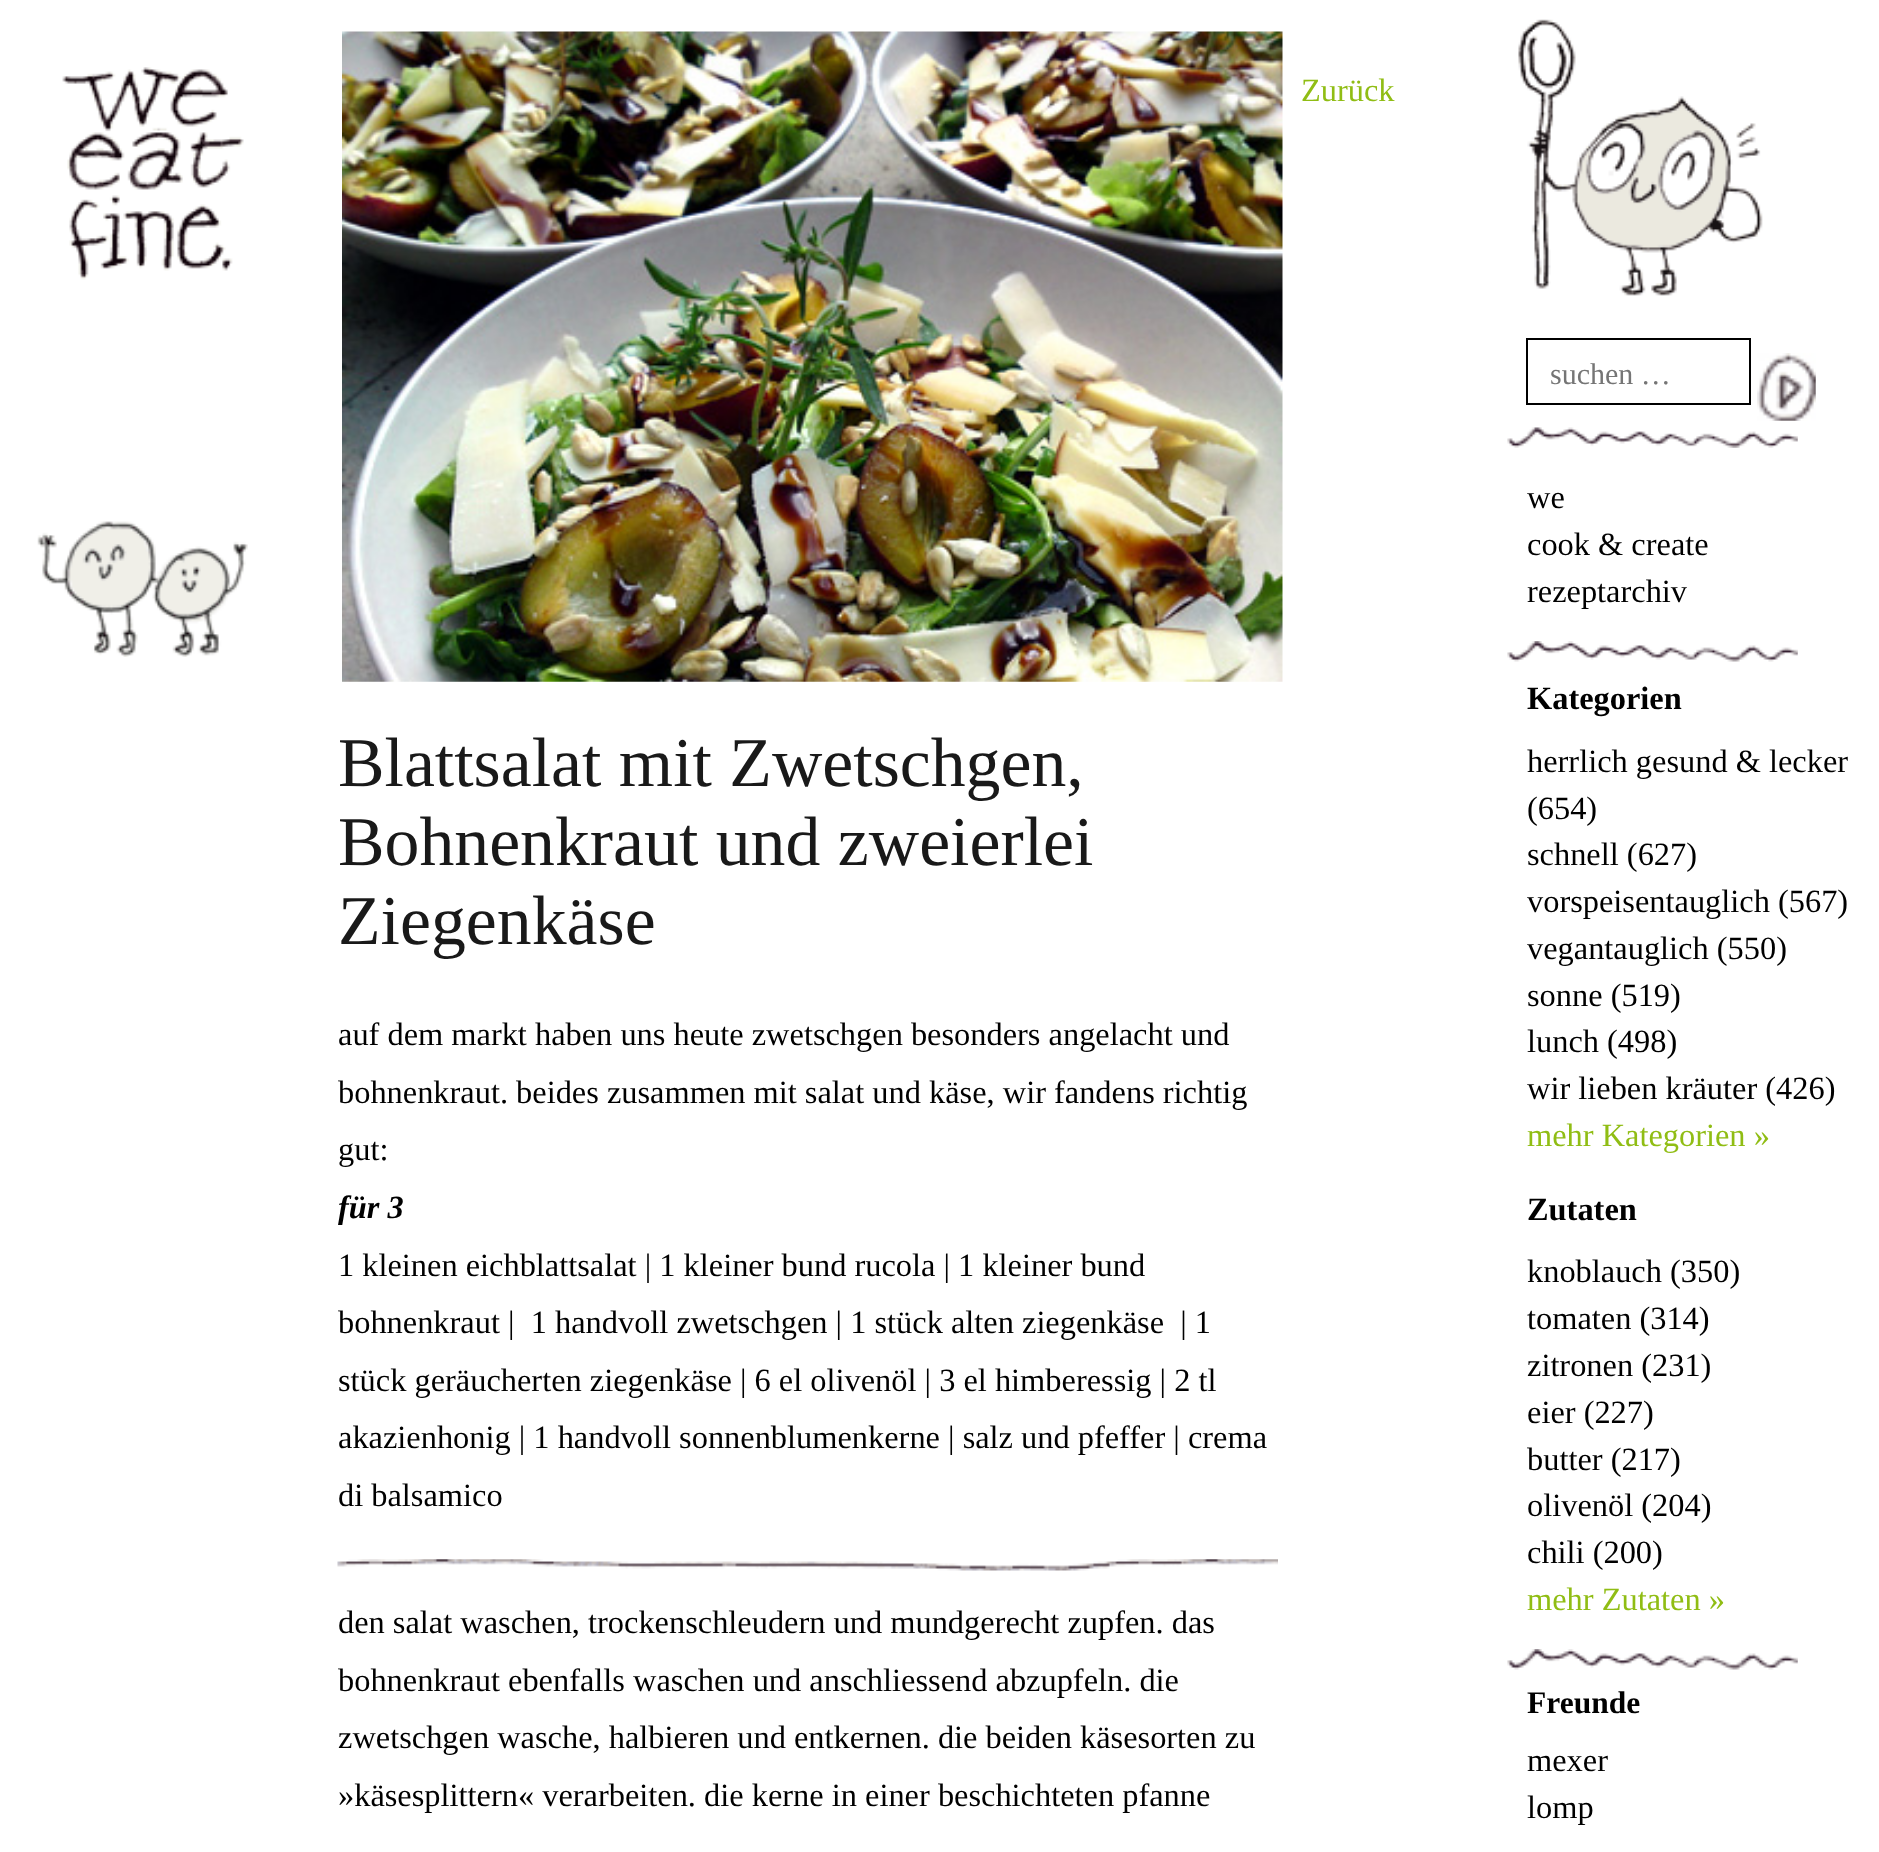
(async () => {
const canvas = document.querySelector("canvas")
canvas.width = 1879
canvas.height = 1852
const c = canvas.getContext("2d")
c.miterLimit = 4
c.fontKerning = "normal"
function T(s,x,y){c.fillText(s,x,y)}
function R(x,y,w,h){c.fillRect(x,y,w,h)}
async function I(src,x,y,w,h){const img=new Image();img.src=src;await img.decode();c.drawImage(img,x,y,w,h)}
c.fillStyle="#fff"
R(0,0,1879,1852)
await I("1.png",7,17,241,640)
c.font="32.4px Liberation Serif"
c.fillStyle="#90bd14"
T("Zurück",1301,101)
await I("2.png",342,31,941,651)
c.font="69.75px Liberation Serif"
c.fillStyle="#191919"
T("Blattsalat mit Zwetschgen,",338,786)
T("Bohnenkraut und zweierlei",338,865)
T("Ziegenkäse",338,944)
c.font="32.4px Liberation Serif"
c.fillStyle="#000"
T("auf dem markt haben uns heute zwetschgen besonders angelacht und",338,1045)
T("bohnenkraut. beides zusammen mit salat und käse, wir fandens richtig",338,1103)
T("gut:",338,1160)
c.font="italic bold 32.4px Liberation Serif"
T("für 3",338,1218)
c.font="32.4px Liberation Serif"
T("1 kleinen eichblattsalat | 1 kleiner bund rucola | 1 kleiner bund",338,1276)
T("bohnenkraut |  1 handvoll zwetschgen | 1 stück alten ziegenkäse  | 1",338,1333)
T("stück geräucherten ziegenkäse | 6 el olivenöl | 3 el himberessig | 2 tl",338,1391)
T("akazienhonig | 1 handvoll sonnenblumenkerne | salz und pfeffer | crema",338,1448)
T("di balsamico",338,1506)
await I("3.png",337,1559,941,12)
T("den salat waschen, trockenschleudern und mundgerecht zupfen. das",338,1633)
T("bohnenkraut ebenfalls waschen und anschliessend abzupfeln. die",338,1691)
T("zwetschgen wasche, halbieren und entkernen. die beiden käsesorten zu",338,1748)
T("»käsesplittern« verarbeiten. die kerne in einer beschichteten pfanne",338,1806)
await I("4.png",1518,19,245,277)
c.strokeStyle="#000"
c.lineWidth=2
c.strokeRect(1527,339,223,65)
c.font="30px Liberation Serif"
c.fillStyle="#757575"
T("suchen …",1550,384)
await I("5.png",1757,353,59,68)
await I("6.png",1507,427,291,21)
c.font="32.4px Liberation Serif"
c.fillStyle="#000"
T("we",1527,508)
T("cook & create",1527,555)
T("rezeptarchiv",1527,602)
await I("7.png",1507,641,291,21)
c.font="bold 32.4px Liberation Serif"
T("Kategorien",1527,709)
c.font="32.4px Liberation Serif"
T("herrlich gesund & lecker",1527,772)
T("(654)",1527,819)
T("schnell (627)",1527,865)
T("vorspeisentauglich (567)",1527,912)
T("vegantauglich (550)",1527,959)
T("sonne (519)",1527,1006)
T("lunch (498)",1527,1052)
T("wir lieben kräuter (426)",1527,1099)
c.fillStyle="#90bd14"
T("mehr Kategorien »",1527,1146)
c.font="bold 32.4px Liberation Serif"
c.fillStyle="#000"
T("Zutaten",1527,1220)
c.font="32.4px Liberation Serif"
T("knoblauch (350)",1527,1282)
T("tomaten (314)",1527,1329)
T("zitronen (231)",1527,1376)
T("eier (227)",1527,1423)
T("butter (217)",1527,1470)
T("olivenöl (204)",1527,1516)
T("chili (200)",1527,1563)
c.fillStyle="#90bd14"
T("mehr Zutaten »",1527,1610)
await I("7.png",1507,1649,291,21)
c.font="bold 31.5px Liberation Serif"
c.fillStyle="#000"
T("Freunde",1527,1713)
c.font="32.4px Liberation Serif"
T("mexer",1527,1771)
T("lomp",1527,1818)
})()
